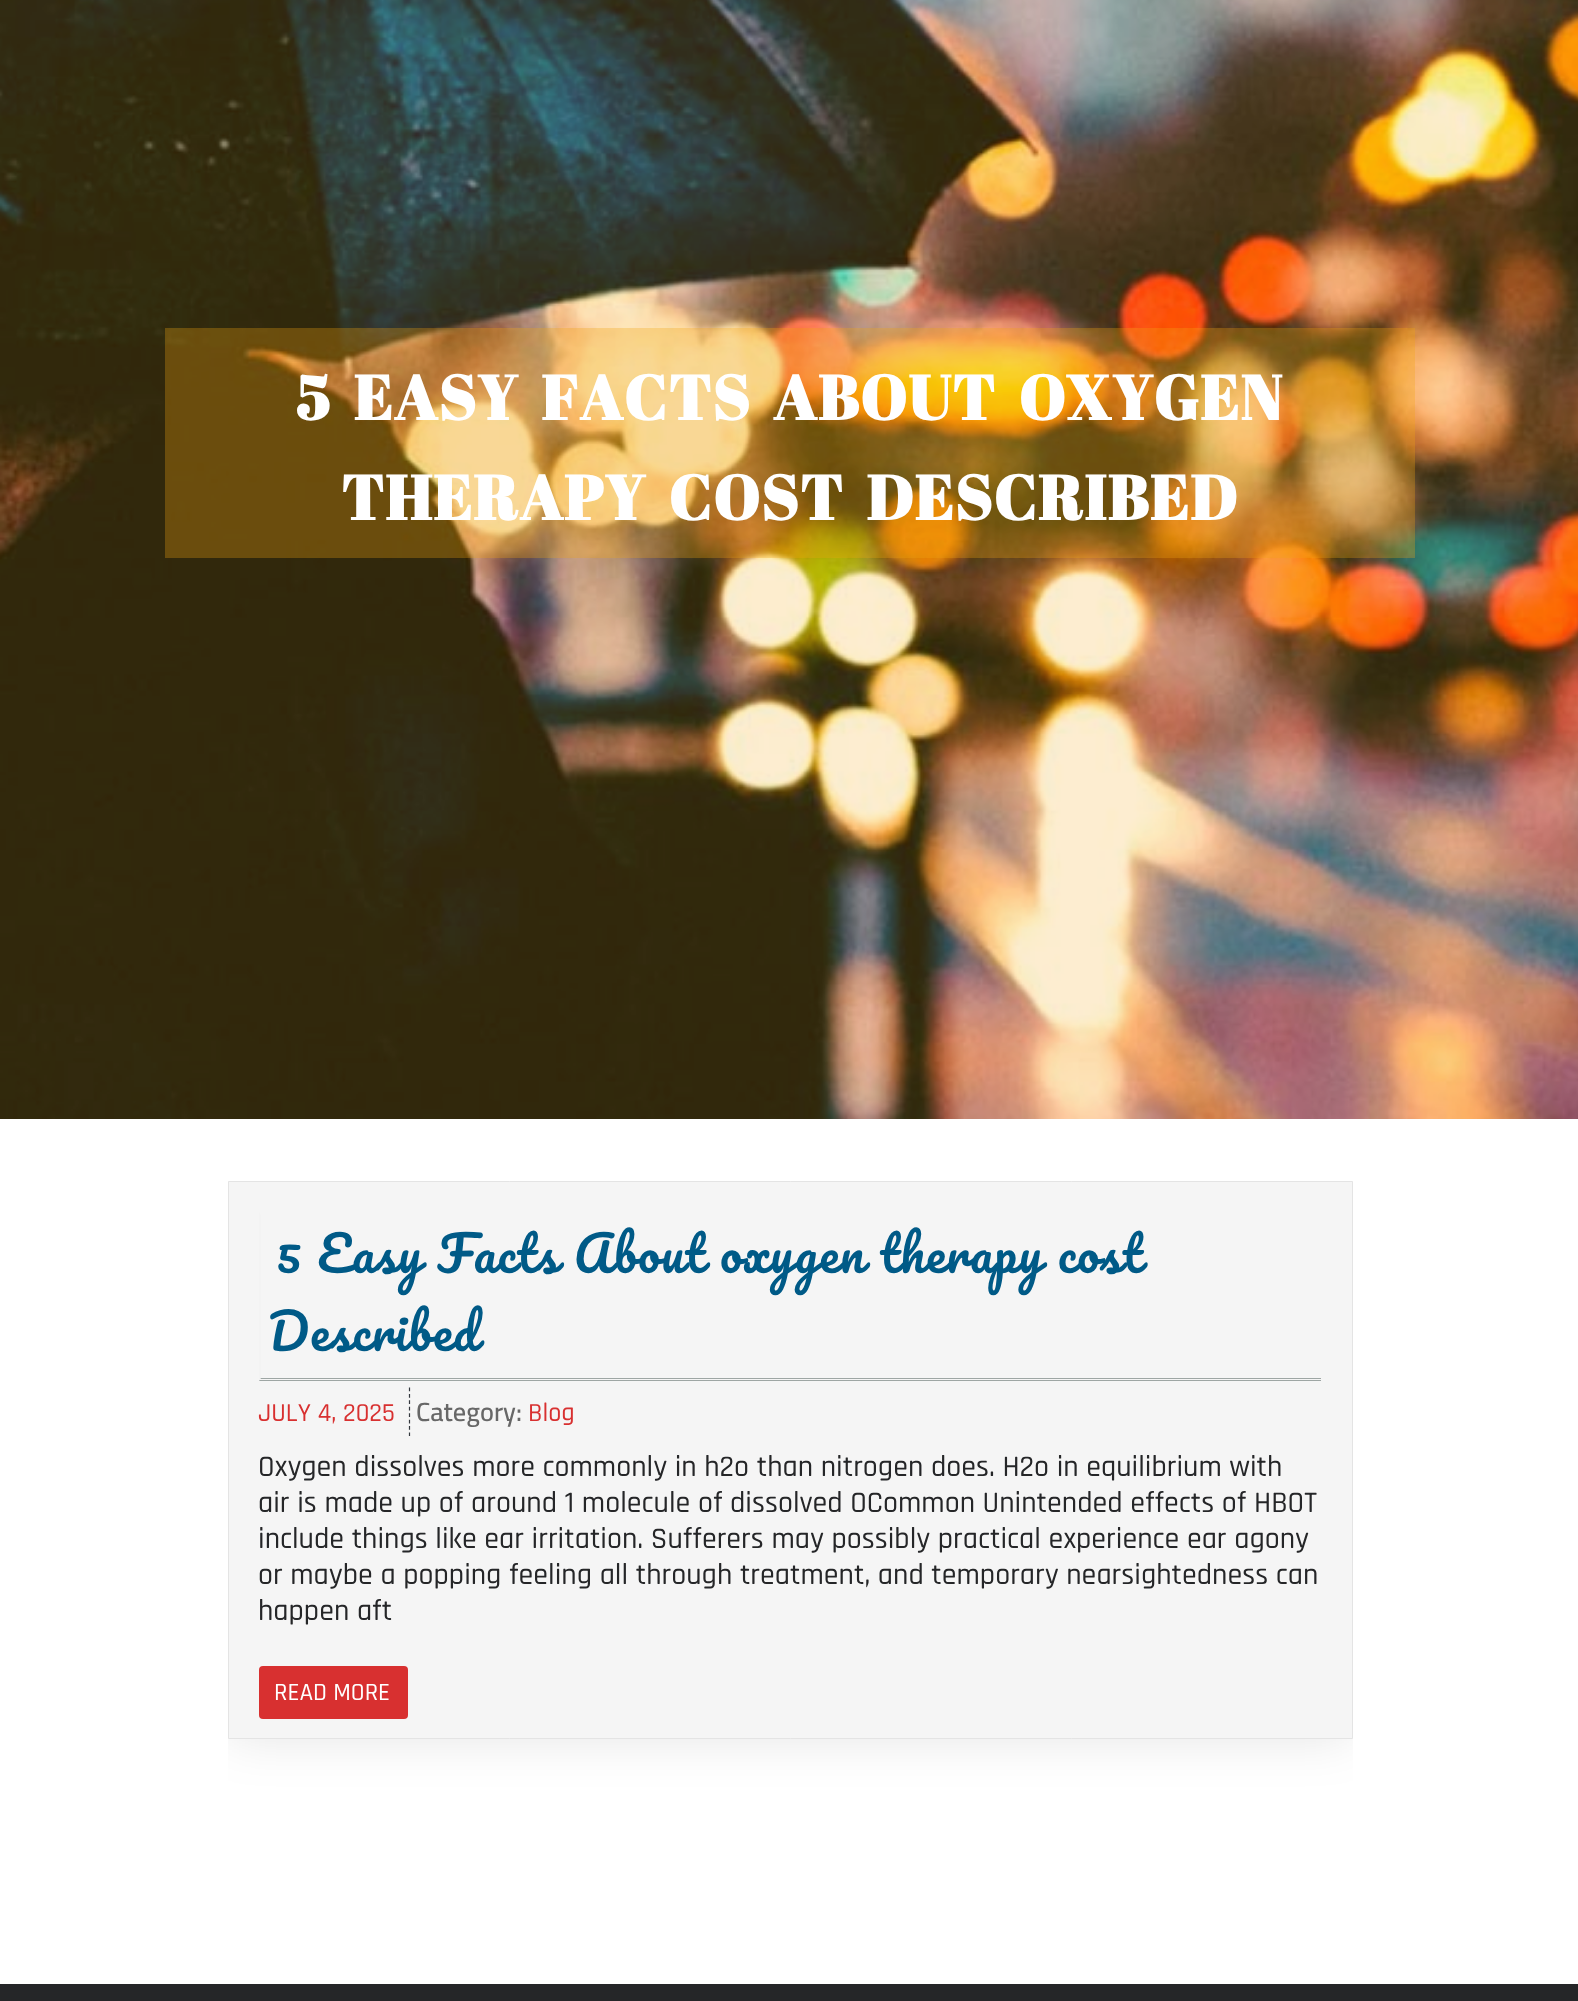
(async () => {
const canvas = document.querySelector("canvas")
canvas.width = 1578
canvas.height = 2001
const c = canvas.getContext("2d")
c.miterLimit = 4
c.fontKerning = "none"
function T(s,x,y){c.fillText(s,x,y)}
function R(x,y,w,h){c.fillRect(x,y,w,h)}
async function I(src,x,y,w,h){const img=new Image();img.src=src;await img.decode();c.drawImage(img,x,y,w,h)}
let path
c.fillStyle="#fff"
R(0,0,1578,2001)
await I("1.png",0,0,1578,1119)
c.fillStyle="#f3a7124d"
R(165,328,1250,230)
c.letterSpacing="1.25px"
c.wordSpacing="10px"
c.font="bold 62.5px Abril Fatface"
c.fillStyle="#fff"
T("5 EASY FACTS",296,420)
T("ABOUT OXYGEN",773,420)
T("THERAPY COST DESCRIBED",341,520)
c.save()
c.beginPath()
c.rect(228,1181,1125,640)
c.clip()
c.fillStyle="#0000001a"
c.filter="blur(25px)"
c.beginPath()
c.rect(228,1181,1125,558)
c.fill()
c.filter="none"
c.restore()
c.fillStyle="#f5f5f5"
c.beginPath()
c.rect(228.5,1181.5,1124,557)
c.fill()
c.strokeStyle="#e4e4e4"
c.stroke()
c.fillStyle="#9ea6a4"
R(259,1378,1062,1)
R(259,1380,1062,1)
c.fillStyle="#f3f3f3"
path = new Path2D("M259 1381v-169l2 3v163z")
c.fill(path)
c.wordSpacing="0.5px"
c.font="48.75px Pacifico"
c.fillStyle="#005a87"
T("5 Easy Facts About oxygen therapy cost",276,1273)
c.wordSpacing="0px"
T("Described",268,1351)
c.letterSpacing="0px"
c.font="500 26.25px Rajdhani"
c.fillStyle="#d83030"
T("JULY 4, 2025",258,1421)
c.font="600 26.25px Cairo"
c.fillStyle="#676767"
T("Category:",416,1421)
path = new Path2D("M409.5 1387.5v48.5")
c.strokeStyle="#33383e"
c.lineWidth=1.2
c.setLineDash([3.75,2.68])
c.stroke(path)
c.font="500 26.25px Rajdhani"
c.fillStyle="#d83030"
T("Blog",528,1421)
c.font="500 30px Rajdhani"
c.fillStyle="#252628"
T("Oxygen dissolves more commonly in h2o than nitrogen does. H2o in equilibrium with",258,1476)
T("air is made up of around 1 molecule of dissolved OCommon Unintended effects of HBOT",258,1512)
T("include things like ear irritation. Sufferers may possibly practical experience ear agony",258,1548)
T("or maybe a popping feeling all through treatment, and temporary nearsightedness can",258,1584)
T("happen aft",258,1620)
c.fillStyle="#d83030"
c.beginPath()
c.roundRect(259,1666,131,53,[4,0,0,4])
c.fill()
c.font="500 25px Rajdhani"
c.fillStyle="#fff"
T("READ MORE",274,1700)
c.fillStyle="#d83030"
c.beginPath()
c.roundRect(390,1666,18,53,[0,4,4,0])
c.fill()
c.fillStyle="#252628"
R(0,1984,1578,17)
})()
